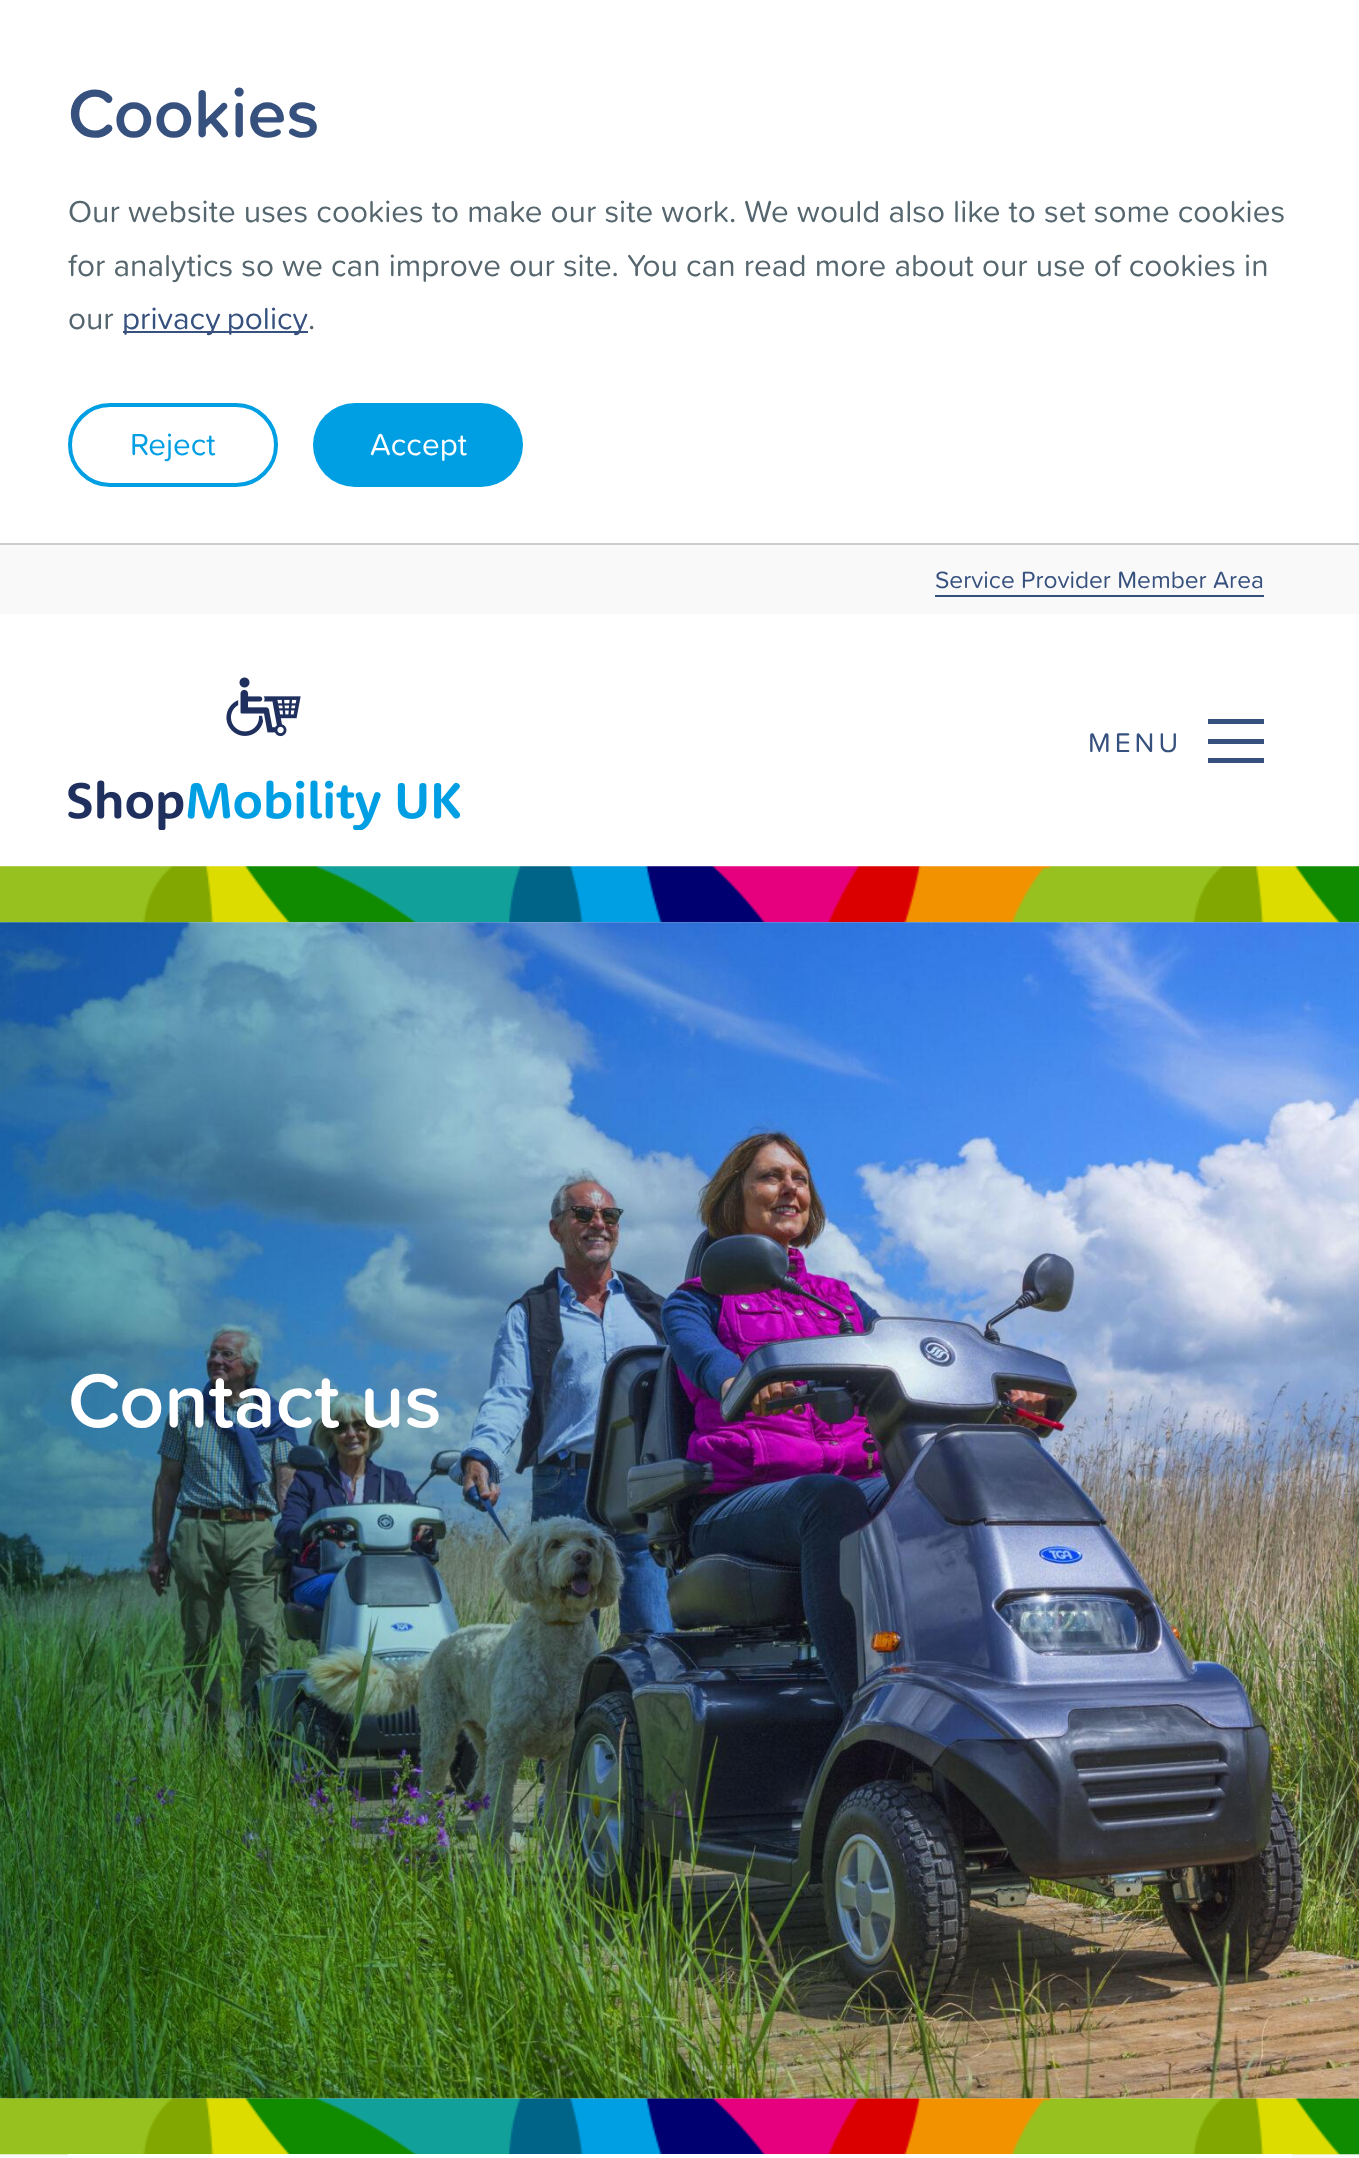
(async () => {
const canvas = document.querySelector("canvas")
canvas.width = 1359
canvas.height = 2158
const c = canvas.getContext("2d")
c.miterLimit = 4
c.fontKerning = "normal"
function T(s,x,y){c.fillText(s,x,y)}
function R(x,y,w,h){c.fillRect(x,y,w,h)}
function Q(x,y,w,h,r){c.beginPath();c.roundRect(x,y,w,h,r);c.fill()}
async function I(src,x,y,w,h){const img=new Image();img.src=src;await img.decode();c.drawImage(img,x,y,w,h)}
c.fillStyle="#f9f9f9"
R(0,0,1359,2158)
c.fillStyle="#fff"
R(0,0,1359,543)
c.fillStyle="#ccc"
R(0,543,1359,2)
c.font="600 70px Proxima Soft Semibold"
c.fillStyle="#37517e"
T("Cookies",68,137)
c.font="31.5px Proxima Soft"
c.fillStyle="#55666e"
T("Our website uses cookies to make our site work. We would also like to set some cookies",68,222)
T("for analytics so we can improve our site. You can read more about our use of cookies in",68,276)
T("our",68,329)
c.fillStyle="#37517e"
R(123,331,185,2)
c.wordSpacing="-2px"
T("privacy policy",122,329)
c.wordSpacing="0px"
c.fillStyle="#55666e"
T(".",308,329)
c.beginPath()
c.roundRect(70,405,206,80,40)
c.strokeStyle="#009fe3"
c.lineWidth=4
c.stroke()
c.fillStyle="#009fe3"
T("Reject",130,455)
Q(313,403,210,84,42)
c.fillStyle="#fff"
T("Accept",370,455)
c.font="24.5px Proxima Soft"
c.fillStyle="#37517e"
T("Service Provider Member Area",935,588)
R(935,595,329,2)
c.fillStyle="#fff"
R(0,614,1359,252)
await I("1.png",68,677,392,153)
c.letterSpacing="4px"
c.font="28px Proxima Soft"
c.fillStyle="#37517e"
T("MENU",1088,752)
R(1208,719,56,5)
R(1208,739,56,5)
R(1208,758,56,5)
await I("2.png",0,866,1359,57)
await I("2.png",0,2098,1359,57)
await I("3.png",0,922,1359,1177)
c.letterSpacing="0px"
c.font="600 78.5px Proxima Soft Semibold"
c.fillStyle="#fff"
T("Contact us",68,1427)
R(68,2154,1224,4)
})()
